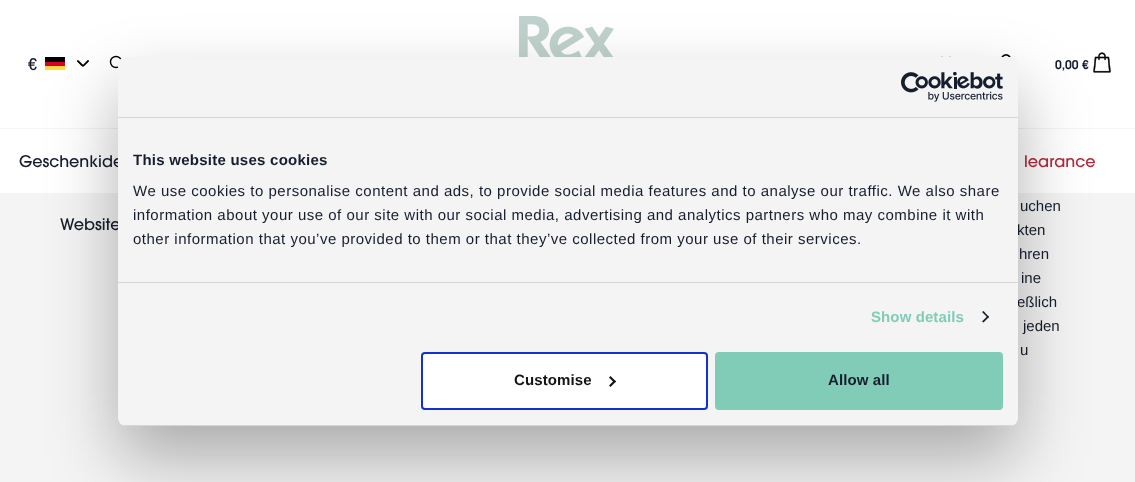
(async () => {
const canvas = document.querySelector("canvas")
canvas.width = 1135
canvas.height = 482
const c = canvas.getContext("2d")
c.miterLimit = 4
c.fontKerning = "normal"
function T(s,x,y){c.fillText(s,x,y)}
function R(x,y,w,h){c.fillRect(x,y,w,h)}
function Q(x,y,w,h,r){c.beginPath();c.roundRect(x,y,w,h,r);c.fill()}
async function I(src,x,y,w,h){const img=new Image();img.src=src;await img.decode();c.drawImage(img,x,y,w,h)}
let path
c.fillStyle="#f4f4f4"
R(0,0,1135,482)
c.fillStyle="#fff"
R(0,0,1135,193)
await I("1.png",519,16,95,41)
c.font="16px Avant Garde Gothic"
c.fillStyle="#161e2e"
T("€",28,70)
c.fillStyle="#000"
R(45,57,20,5)
c.fillStyle="#d80027"
R(45,62,20,4)
c.fillStyle="#ffda44"
R(45,66,20,4)
await I("2.png",77,60,12,7)
c.beginPath()
c.arc(116,62,5.5,0,7)
c.strokeStyle="#000"
c.lineWidth=1.4
c.stroke()
await I("3.png",941,56,10,1)
await I("4.png",1001,54,10,4)
c.font="12px 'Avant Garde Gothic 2'"
c.fillStyle="#161e2e"
T("0,00 €",1055,69)
await I("5.png",1093,52,18,21)
c.fillStyle="#f4f4f4"
R(0,128,1135,1)
c.font="16px Avant Garde Gothic"
c.fillStyle="#161e2e"
T("Geschenkide",19,167)
c.fillStyle="#b02d3f"
T("learance",1024,167)
c.fillStyle="#161e2e"
T("Website",60,230)
c.font="15px Liberation Sans"
T("uchen",1020,211)
T("kten",1017,235)
T("hren",1019,259)
T("ine",1021,283)
T("eßlich",1017,307)
T("jeden",1023,331)
T("u",1020,355)
c.fillStyle="#0000004d"
c.filter="blur(34px)"
c.beginPath()
c.roundRect(118,89,900,369,8)
c.fill()
c.filter="none"
c.fillStyle="#f4f4f4"
Q(118,57,900,369,8)
c.fillStyle="#d6d6d6"
R(118,117,900,1)
await I("6.png",901,72,102,30)
R(118,282,900,1)
c.letterSpacing="0.25px"
c.font="bold 15px Liberation Sans"
c.fillStyle="#161e2e"
T("This website uses cookies",133,165)
c.letterSpacing="0.5px"
c.font="15px Liberation Sans"
T("We use cookies to personalise content and ads, to provide social media features and to analyse our traffic. We also share",133,196)
T("information about your use of our site with our social media, advertising and analytics partners who may combine it with",133,220)
T("other information that you’ve provided to them or that they’ve collected from your use of their services.",133,244)
c.letterSpacing="0.1px"
c.font="bold 15px Liberation Sans"
c.fillStyle="#81ccb7"
T("Show details",871,322)
c.fillStyle="#161e2e"
path = new Path2D("M983.5 311l5.5 6l-1 1l-6-6z")
c.fill(path)
path = new Path2D("M988 315.5l1 1.5l-5.5 5.5l-1.5-1z")
c.fill(path)
c.save()
c.beginPath()
c.roundRect(118,57,900,369,8)
c.clip()
c.fillStyle="#d6d6d6"
R(118,425,900,1)
c.restore()
c.fillStyle="#fff"
c.beginPath()
c.roundRect(422,353,285,56,3)
c.fill()
c.strokeStyle="#1032cf"
c.lineWidth=2
c.stroke()
c.fillStyle="#141414"
T("Customise",514,385)
path = new Path2D("M610.5 376l5.5 5.5l-1.5 1.5l-5.5-5.5z")
c.fill(path)
path = new Path2D("M614.5 380l1.5 1.5l-5.5 5.5l-1.5-1.5z")
c.fill(path)
c.fillStyle="#81ccb7"
c.beginPath()
c.roundRect(716,353,286,56,3)
c.fill()
c.strokeStyle="#81ccb7"
c.stroke()
c.fillStyle="#161e2e"
T("Allow all",828,385)
})()
